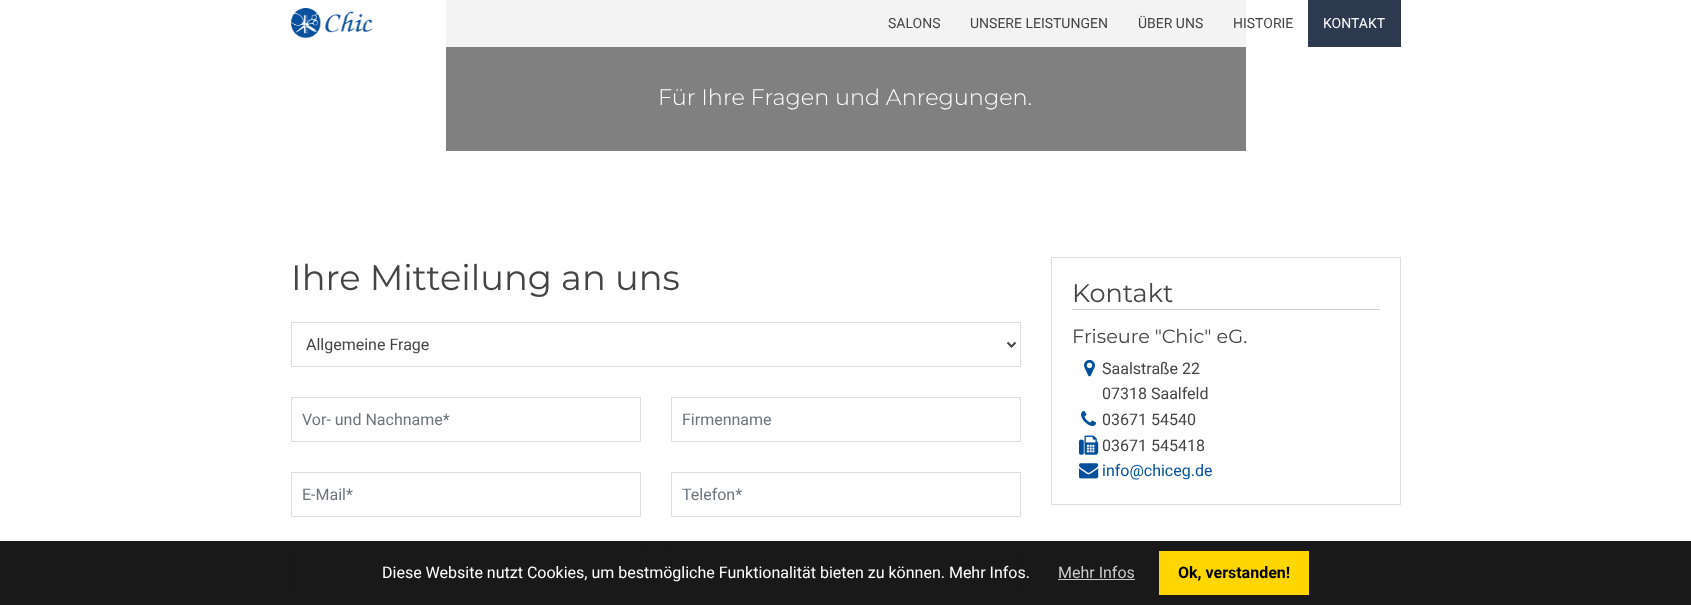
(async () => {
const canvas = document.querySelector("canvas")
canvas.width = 1691
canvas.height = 605
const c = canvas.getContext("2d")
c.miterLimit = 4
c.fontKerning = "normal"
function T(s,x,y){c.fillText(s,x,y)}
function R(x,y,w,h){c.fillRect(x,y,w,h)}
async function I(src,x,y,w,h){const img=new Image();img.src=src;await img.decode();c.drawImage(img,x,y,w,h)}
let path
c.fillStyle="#fff"
R(0,0,1691,605)
c.fillStyle="#191919"
R(0,541,1691,64)
c.fillStyle="#808080"
R(446,0,800,151)
c.fillStyle="#ffffffe6"
R(446,0,800,47)
await I("1.png",291,8,82,30)
c.font="14px Roboto"
c.fillStyle="#444"
T("SALONS",888,28)
T("UNSERE LEISTUNGEN",970,28)
T("ÜBER UNS",1138,28)
T("HISTORIE",1233,28)
c.fillStyle="#2c394e"
R(1308,0,93,47)
c.fillStyle="#fff"
T("KONTAKT",1323,28)
c.font="300 22.4px Montserrat"
T("Für Ihre Fragen und Anregungen.",658,105)
c.font="35.25px Montserrat"
c.fillStyle="#444"
T("Ihre Mitteilung an uns",291,290)
c.strokeStyle="#dedede"
c.strokeRect(291.5,322.5,729,44)
path = new Path2D("M1007.5 342.5l4 4l4-4")
c.strokeStyle="#444"
c.lineWidth=2
c.stroke(path)
c.font="16px Roboto"
T("Allgemeine Frage",306,350)
c.strokeStyle="#dedede"
c.lineWidth=1
c.strokeRect(291.5,397.5,349,44)
c.fillStyle="#6c757d"
T("Vor- und Nachname*",302,425)
c.strokeRect(671.5,397.5,349,44)
T("Firmenname",682,425)
c.strokeRect(291.5,472.5,349,44)
T("E-Mail*",302,500)
c.strokeRect(671.5,472.5,349,44)
T("Telefon*",682,500)
c.strokeStyle="#161616"
c.strokeRect(291.5,547.5,349,44)
c.strokeRect(671.5,547.5,349,44)
c.strokeStyle="#dedede"
c.strokeRect(1051.5,257.5,349,247)
c.fillStyle="#ccc"
R(1072,309,308,1)
c.font="25.5px Montserrat"
c.fillStyle="#444"
T("Kontakt",1072,302)
c.font="19.25px Montserrat"
T("Friseure \"Chic\" eG.",1072,343)
await I("2.png",1084,359,11,18)
c.font="16px Roboto"
T("Saalstraße 22",1102,374)
T("07318 Saalfeld",1102,399)
await I("3.png",1081,410,16,16)
T("03671 54540",1102,425)
await I("4.png",1079,435,20,20)
T("03671 545418",1102,451)
await I("5.png",1079,463,20,16)
c.fillStyle="#024f9d"
T("info@chiceg.de",1102,476)
c.fillStyle="#fff"
T("Diese Website nutzt Cookies, um bestmögliche Funktionalität bieten zu können. Mehr Infos.",382,578)
c.fillStyle="#ccc"
T("Mehr Infos",1058,578)
R(1058,579,77,1)
c.fillStyle="#ffd600"
R(1159,551,150,44)
c.font="bold 16px Roboto"
c.fillStyle="#000"
T("Ok, verstanden!",1178,578)
})()
